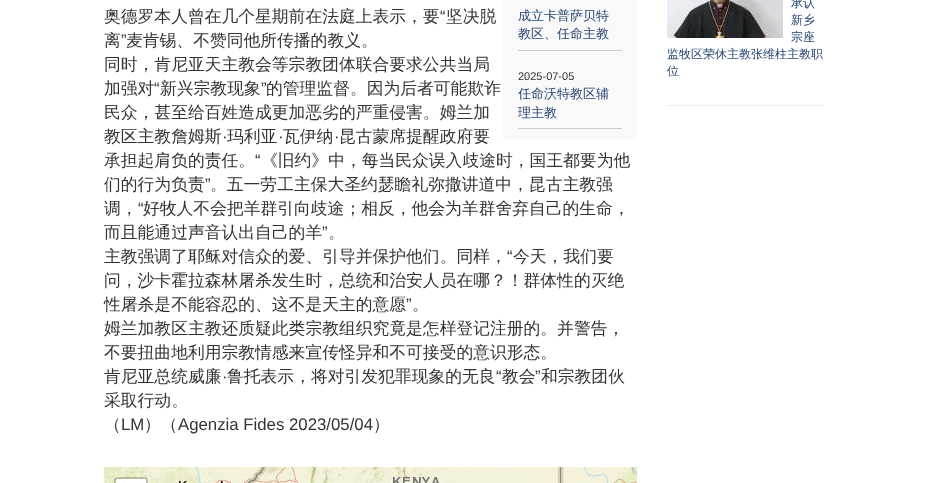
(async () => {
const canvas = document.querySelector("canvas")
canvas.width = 928
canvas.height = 483
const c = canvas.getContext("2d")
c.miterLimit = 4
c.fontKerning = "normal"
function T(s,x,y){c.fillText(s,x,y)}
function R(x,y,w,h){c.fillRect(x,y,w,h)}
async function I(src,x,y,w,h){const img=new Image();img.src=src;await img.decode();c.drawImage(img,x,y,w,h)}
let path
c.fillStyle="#fff"
R(0,0,928,483)
c.font="500 16.8px WenQuanYi Zen Hei"
c.fillStyle="#333"
T("奥德罗本人曾在几个星期前在法庭上表示，要",104,22)
c.font="16.8px Liberation Sans"
T("“",440,22)
c.font="500 16.8px WenQuanYi Zen Hei"
T("坚决脱",446,22)
T("离",104,46)
c.font="16.8px Liberation Sans"
T("”",121,46)
c.font="500 16.8px WenQuanYi Zen Hei"
T("麦肯锡、不赞同他所传播的教义。",126,46)
T("同时，肯尼亚天主教会等宗教团体联合要求公共当局",104,70)
T("加强对",104,94)
c.font="16.8px Liberation Sans"
T("“",154,94)
c.font="500 16.8px WenQuanYi Zen Hei"
T("新兴宗教现象",160,94)
c.font="16.8px Liberation Sans"
T("”",261,94)
c.font="500 16.8px WenQuanYi Zen Hei"
T("的管理监督。因为后者可能欺诈",266,94)
T("民众，甚至给百姓造成更加恶劣的严重侵害。姆兰加",104,118)
T("教区主教詹姆斯",104,142)
c.font="16.8px Liberation Sans"
T("·",222,142)
c.font="500 16.8px WenQuanYi Zen Hei"
T("玛利亚",227,142)
c.font="16.8px Liberation Sans"
T("·",278,142)
c.font="500 16.8px WenQuanYi Zen Hei"
T("瓦伊纳",283,142)
c.font="16.8px Liberation Sans"
T("·",334,142)
c.font="500 16.8px WenQuanYi Zen Hei"
T("昆古蒙席提醒政府要",339,142)
T("承担起肩负的责任。",104,166)
c.font="16.8px Liberation Sans"
T("“",255,166)
c.font="500 16.8px WenQuanYi Zen Hei"
T("《旧约》中，每当民众误入歧途时，国王都要为他",261,166)
T("们的行为负责",104,190)
c.font="16.8px Liberation Sans"
T("”",205,190)
c.font="500 16.8px WenQuanYi Zen Hei"
T("。五一劳工主保大圣约瑟瞻礼弥撒讲道中，昆古主教强",210,190)
T("调，",104,214)
c.font="16.8px Liberation Sans"
T("“",138,214)
c.font="500 16.8px WenQuanYi Zen Hei"
T("好牧人不会把羊群引向歧途；相反，他会为羊群舍弃自己的生命，",143,214)
T("而且能通过声音认出自己的羊",104,238)
c.font="16.8px Liberation Sans"
T("”",322,238)
c.font="500 16.8px WenQuanYi Zen Hei"
T("。",328,238)
T("主教强调了耶稣对信众的爱、引导并保护他们。同样，",104,262)
c.font="16.8px Liberation Sans"
T("“",507,262)
c.font="500 16.8px WenQuanYi Zen Hei"
T("今天，我们要",513,262)
T("问，沙卡霍拉森林屠杀发生时，总统和治安人员在哪？！群体性的灭绝",104,286)
T("性屠杀是不能容忍的、这不是天主的意愿",104,310)
c.font="16.8px Liberation Sans"
T("”",406,310)
c.font="500 16.8px WenQuanYi Zen Hei"
T("。",412,310)
T("姆兰加教区主教还质疑此类宗教组织究竟是怎样登记注册的。并警告，",104,334)
T("不要扭曲地利用宗教情感来宣传怪异和不可接受的意识形态。",104,358)
T("肯尼亚总统威廉",104,382)
T("鲁托表示，将对引发犯罪现象的无良",227,382)
c.font="16.8px Liberation Sans"
T("“",496,382)
c.font="500 16.8px WenQuanYi Zen Hei"
T("教会",502,382)
c.font="16.8px Liberation Sans"
T("”",535,382)
c.font="500 16.8px WenQuanYi Zen Hei"
T("和宗教团伙",541,382)
c.font="16.8px Liberation Sans"
T("·",222,382)
c.font="500 16.8px WenQuanYi Zen Hei"
T("采取行动。",104,406)
T("（",104,430)
c.font="16.8px Liberation Sans"
T("LM",121,430)
c.font="500 16.8px WenQuanYi Zen Hei"
T("）（",144,430)
c.font="16.8px Liberation Sans"
T("Agenzia Fides 2023/05/04",178,430)
c.font="500 16.8px WenQuanYi Zen Hei"
T("）",373,430)
c.fillStyle="#f9f9f9"
R(503,0,134,139)
c.fillStyle="#ccc"
R(518,50,104,1)
c.font="500 13px WenQuanYi Zen Hei"
c.fillStyle="#254472"
T("成立卡普萨贝特",518,20)
T("教区、任命主教",518,38)
c.fillStyle="#ccc"
R(518,128,104,1)
c.font="11px Liberation Sans"
c.fillStyle="#333"
T("2025-07-05",518,80)
c.font="500 13px WenQuanYi Zen Hei"
c.fillStyle="#254472"
T("任命沃特教区辅",518,98)
T("理主教",518,117)
await I("1.png",104,467,127,16)
await I("2.png",231,467,256,16)
await I("3.png",487,467,150,16)
c.beginPath()
c.roundRect(115,478,32,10,3)
c.strokeStyle="#00000033"
c.lineWidth=2
c.stroke()
c.fillStyle="#fff"
path = new Path2D("M118 479h26c1 0 2 1 2 2v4h-30v-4c0-1 1-2 2-2z")
c.fill(path)
await I("4.png",667,0,116,38)
c.font="500 12px WenQuanYi Zen Hei"
c.fillStyle="#254472"
T("承认",791,7)
T("新乡",791,24)
T("宗座",791,41)
T("监牧区荣休主教张维柱主教职",667,58)
T("位",667,75)
c.fillStyle="#eee"
R(667,105,157,1)
})()
